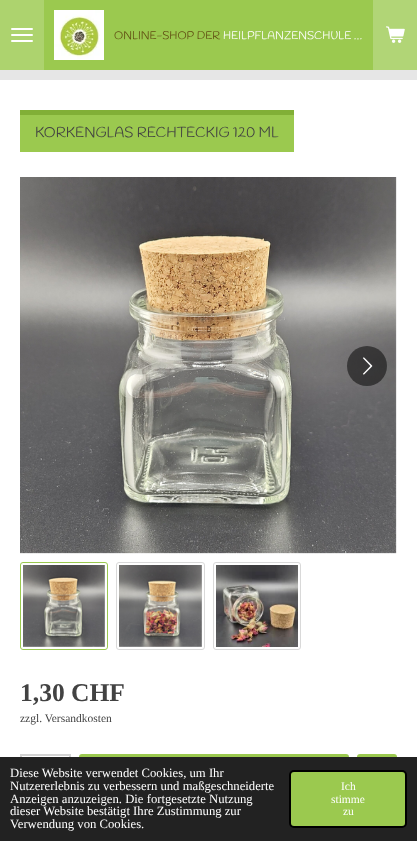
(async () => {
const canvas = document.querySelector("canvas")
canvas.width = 417
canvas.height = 841
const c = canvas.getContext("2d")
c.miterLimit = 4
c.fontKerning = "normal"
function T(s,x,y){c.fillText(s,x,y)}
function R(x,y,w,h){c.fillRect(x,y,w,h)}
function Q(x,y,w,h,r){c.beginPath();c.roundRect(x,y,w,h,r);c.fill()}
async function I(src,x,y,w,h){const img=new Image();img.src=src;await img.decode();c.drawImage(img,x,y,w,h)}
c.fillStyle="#e6e6e6"
R(0,0,417,841)
c.fillStyle="#add36e"
R(0,0,44,70)
c.fillStyle="#fff"
Q(11,34,22,2,1)
Q(11,28,22,2,1)
Q(11,40,22,2,1)
c.fillStyle="#9bc94f"
R(44,0,329,70)
await I("1.png",54,10,50,50)
c.font="11.25px Handlee"
c.fillStyle="#614f13"
T("ONLINE-SHOP DER",114,39)
c.fillStyle="#fff"
T("HEILPFLANZENSCHULE …",223,39)
c.fillStyle="#b1d576"
R(373,0,44,70)
await I("2.png",386,26,19,17)
c.fillStyle="#fff"
R(0,80,417,677)
c.fillStyle="#9bc94f"
R(20,115,274,37)
c.fillStyle="#81af36"
R(20,110,274,5)
c.font="14.5px Handlee"
c.fillStyle="#424242"
T("KORKENGLAS RECHTECKIG 120 ML",35,137)
await I("3.png",20,177,377,377)
c.fillStyle="#00000080"
c.beginPath()
c.arc(367,366,20,0,7)
c.fill()
await I("4.png",363,357,10,18)
c.beginPath()
c.roundRect(20.5,562.5,87,87,2.5)
c.strokeStyle="#9bc94f"
c.stroke()
await I("5.png",23,565,82,82)
c.beginPath()
c.roundRect(116.5,562.5,88,87,2.5)
c.strokeStyle="#d9d9d9"
c.stroke()
await I("6.png",119,565,83,82)
c.beginPath()
c.roundRect(213.5,562.5,87,87,2.5)
c.stroke()
await I("7.png",216,565,82,82)
c.font="bold 25.5px Liberation Serif"
c.fillStyle="#424242"
T("1,30 CHF",20,701)
c.font="11.5px Liberation Serif"
T("zzgl. Versandkosten",20,722)
c.strokeStyle="#d3d3d3"
c.lineWidth=2
c.strokeRect(21,755,49,42)
c.fillStyle="#9bc94f"
Q(79,754,270,44,3)
Q(357,754,40,44,3)
c.fillStyle="#222"
R(0,757,417,84)
c.font="12.7px Liberation Serif"
c.fillStyle="#fff"
T("Diese Website verwendet Cookies, um Ihr",10,777)
T("Nutzererlebnis zu verbessern und maßgeschneiderte",10,790)
T("Anzeigen anzuzeigen. Die fortgesetzte Nutzung",10,803)
T("dieser Website bestätigt Ihre Zustimmung zur",10,815)
T("Verwendung von Cookies.",10,828)
c.fillStyle="#9bc94f"
c.beginPath()
c.roundRect(290,771,116,56,4)
c.fill()
c.strokeStyle="#000"
c.stroke()
c.font="11.5px Liberation Serif"
c.fillStyle="#fff"
T("Ich",341,790)
T("stimme",331,803)
T("zu",343,815)
})()
